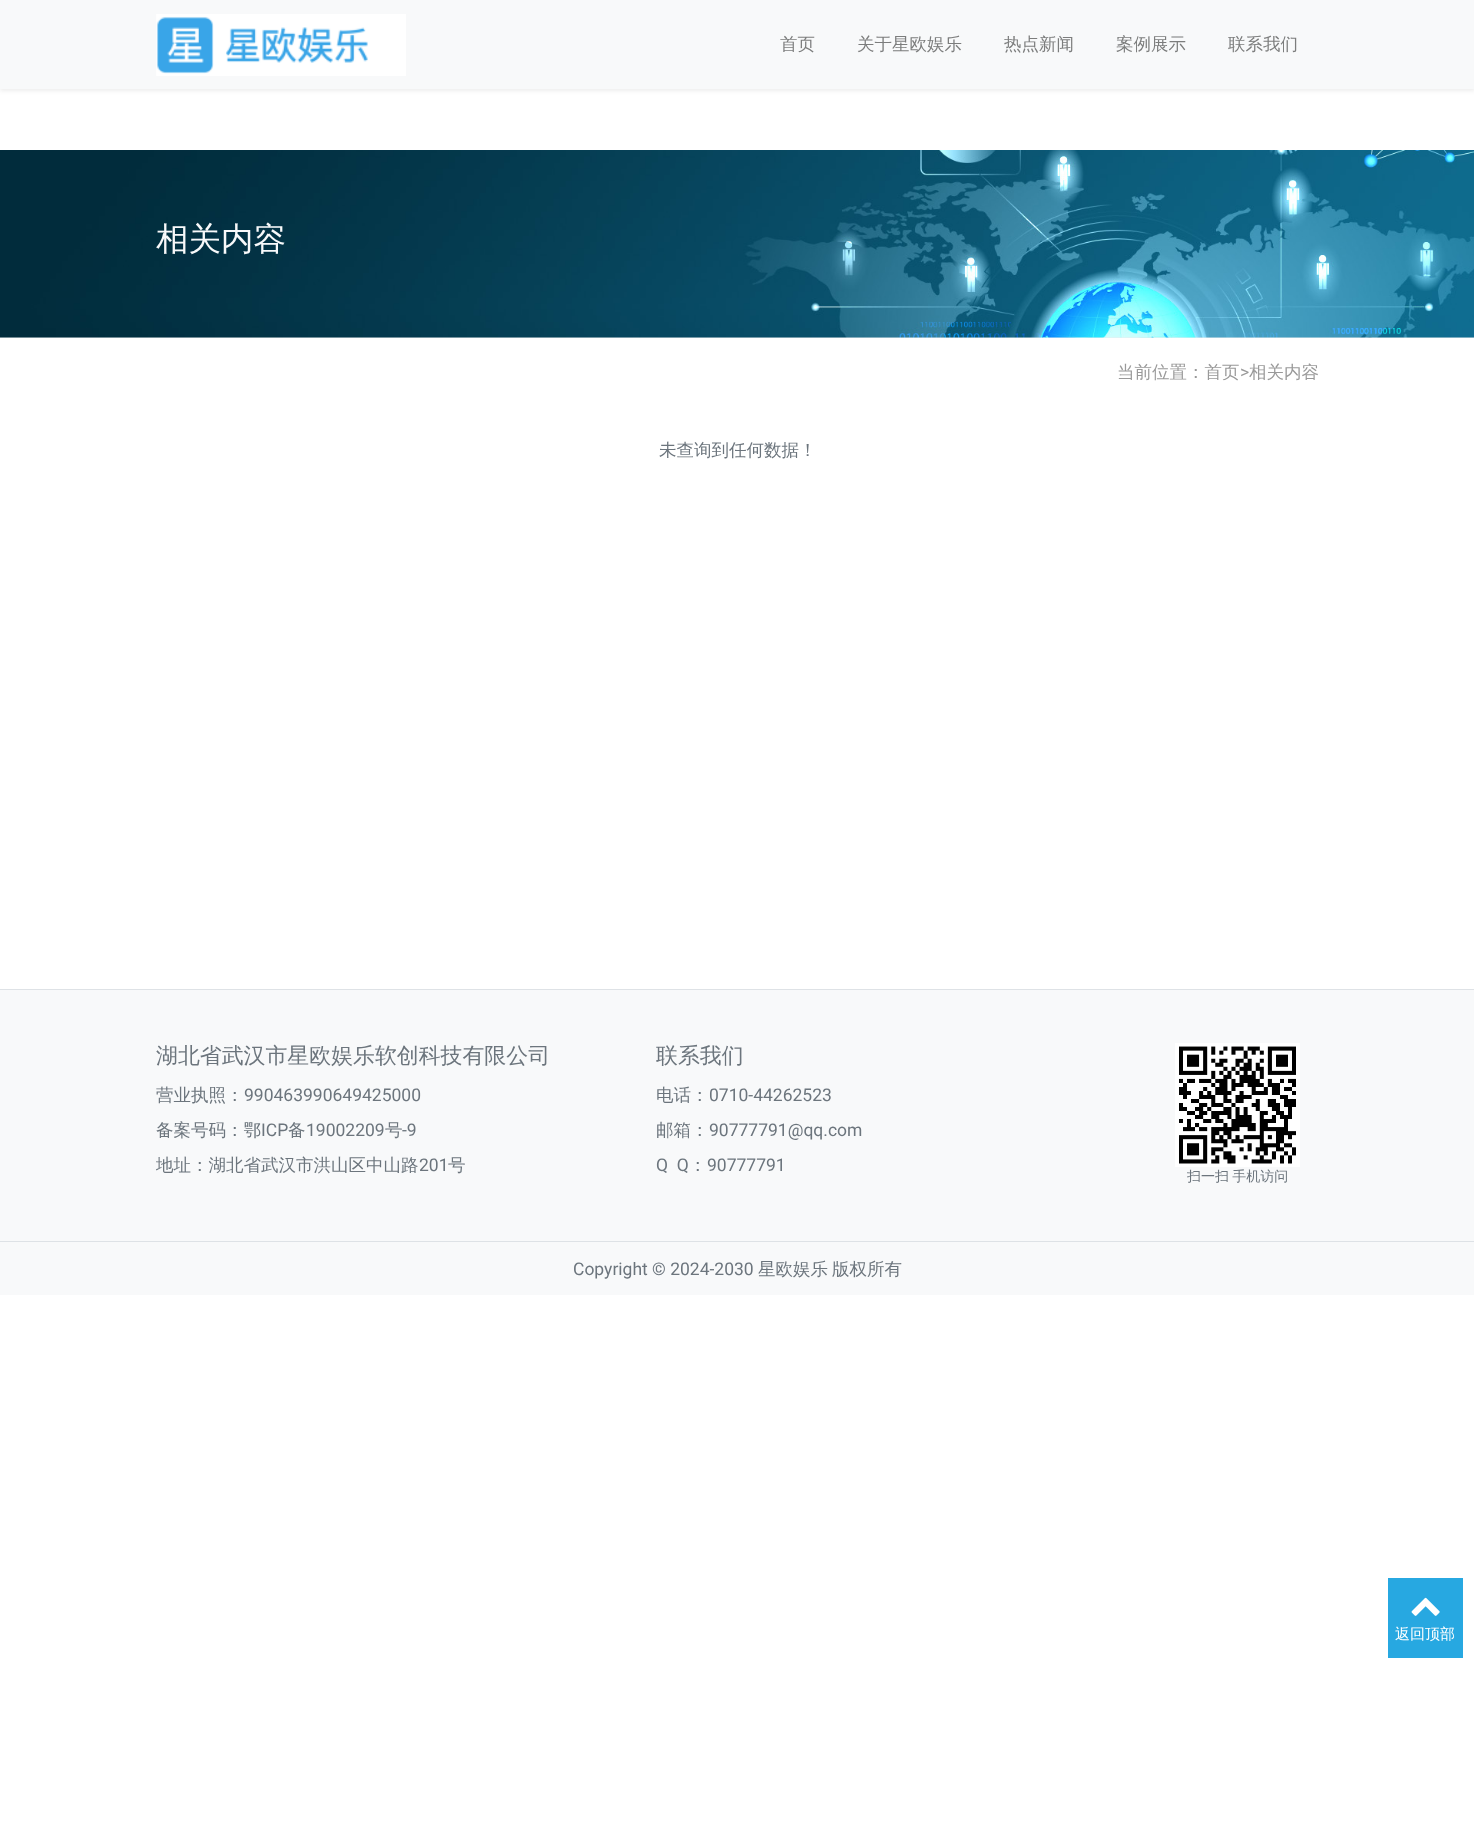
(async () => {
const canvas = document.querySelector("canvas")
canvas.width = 1474
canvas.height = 1846
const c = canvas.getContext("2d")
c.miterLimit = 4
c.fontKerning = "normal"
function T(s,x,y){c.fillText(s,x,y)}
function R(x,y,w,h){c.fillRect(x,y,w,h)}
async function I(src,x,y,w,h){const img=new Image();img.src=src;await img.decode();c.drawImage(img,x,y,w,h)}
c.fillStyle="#fff"
R(0,0,1474,1846)
c.fillStyle="#00000012"
c.filter="blur(2px)"
c.beginPath()
c.rect(0,3,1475,88)
c.fill()
c.filter="none"
c.fillStyle="#f8f9fa"
R(0,0,1474,89)
await I("1.png",156,14,250,62)
c.font="500 17.5px WenQuanYi Zen Hei"
c.fillStyle="#7c7d7d"
T("首页",780,50)
T("关于星欧娱乐",857,50)
T("热点新闻",1004,50)
T("案例展示",1116,50)
T("联系我们",1228,50)
c.fillStyle="#e9ecef"
R(0,337,1474,1)
await I("2.png",0,150,1474,188)
c.font="500 32.5px WenQuanYi Zen Hei"
c.fillStyle="#f8f9fa"
T("相关内容",156,250)
c.font="500 17.5px WenQuanYi Zen Hei"
c.fillStyle="#999"
T("当前位置：首页",1117,378)
c.font="17.5px Roboto"
T(">",1240,378)
c.font="500 17.5px WenQuanYi Zen Hei"
T("相关内容",1249,378)
c.fillStyle="#6c757d"
T("未查询到任何数据！",659,456)
c.fillStyle="#f8f9fa"
R(0,990,1474,305)
c.fillStyle="#dee2e6"
R(0,989,1474,1)
c.font="500 21.9px WenQuanYi Zen Hei"
c.fillStyle="#6c757d"
T("湖北省武汉市星欧娱乐软创科技有限公司",156,1063)
c.font="500 17.5px WenQuanYi Zen Hei"
T("营业执照：",156,1101)
c.font="17.5px Roboto"
T("990463990649425000",244,1101)
c.font="500 17.5px WenQuanYi Zen Hei"
T("备案号码：鄂",156,1136)
c.font="17.5px Roboto"
T("ICP",261,1136)
c.font="500 17.5px WenQuanYi Zen Hei"
T("备",288,1136)
c.font="17.5px Roboto"
T("19002209",306,1136)
c.font="500 17.5px WenQuanYi Zen Hei"
T("号",385,1136)
c.font="17.5px Roboto"
T("-9",402,1136)
c.font="500 17.5px WenQuanYi Zen Hei"
T("地址：湖北省武汉市洪山区中山路",156,1171)
c.font="17.5px Roboto"
T("201",419,1171)
c.font="500 17.5px WenQuanYi Zen Hei"
T("号",448,1171)
c.font="500 21.9px WenQuanYi Zen Hei"
T("联系我们",656,1063)
c.font="500 17.5px WenQuanYi Zen Hei"
T("电话：",656,1101)
c.font="17.5px Roboto"
T("0710-44262523",709,1101)
c.font="500 17.5px WenQuanYi Zen Hei"
T("邮箱：",656,1136)
c.font="17.5px Roboto"
T("90777791@qq.com",709,1136)
T("Q  Q",656,1171)
c.font="500 17.5px WenQuanYi Zen Hei"
T("：",689,1171)
c.font="17.5px Roboto"
T("90777791",707,1171)
await I("3.png",1175,1043,125,124)
c.wordSpacing="-1px"
c.font="500 14px WenQuanYi Zen Hei"
T("扫一扫 手机访问",1187,1181)
c.fillStyle="#dee2e6"
R(0,1241,1474,1)
c.wordSpacing="0px"
c.font="17.5px Roboto"
c.fillStyle="#6c757d"
T("Copyright © 2024-2030",573,1275)
c.font="500 17.5px WenQuanYi Zen Hei"
T("星欧娱乐",758,1275)
T("版权所有",832,1275)
c.fillStyle="#27a8e1"
R(1388,1578,75,80)
await I("4.png",1411,1597,29,19)
c.font="500 15px WenQuanYi Zen Hei"
c.fillStyle="#fff"
T("返回顶部",1395,1639)
})()
